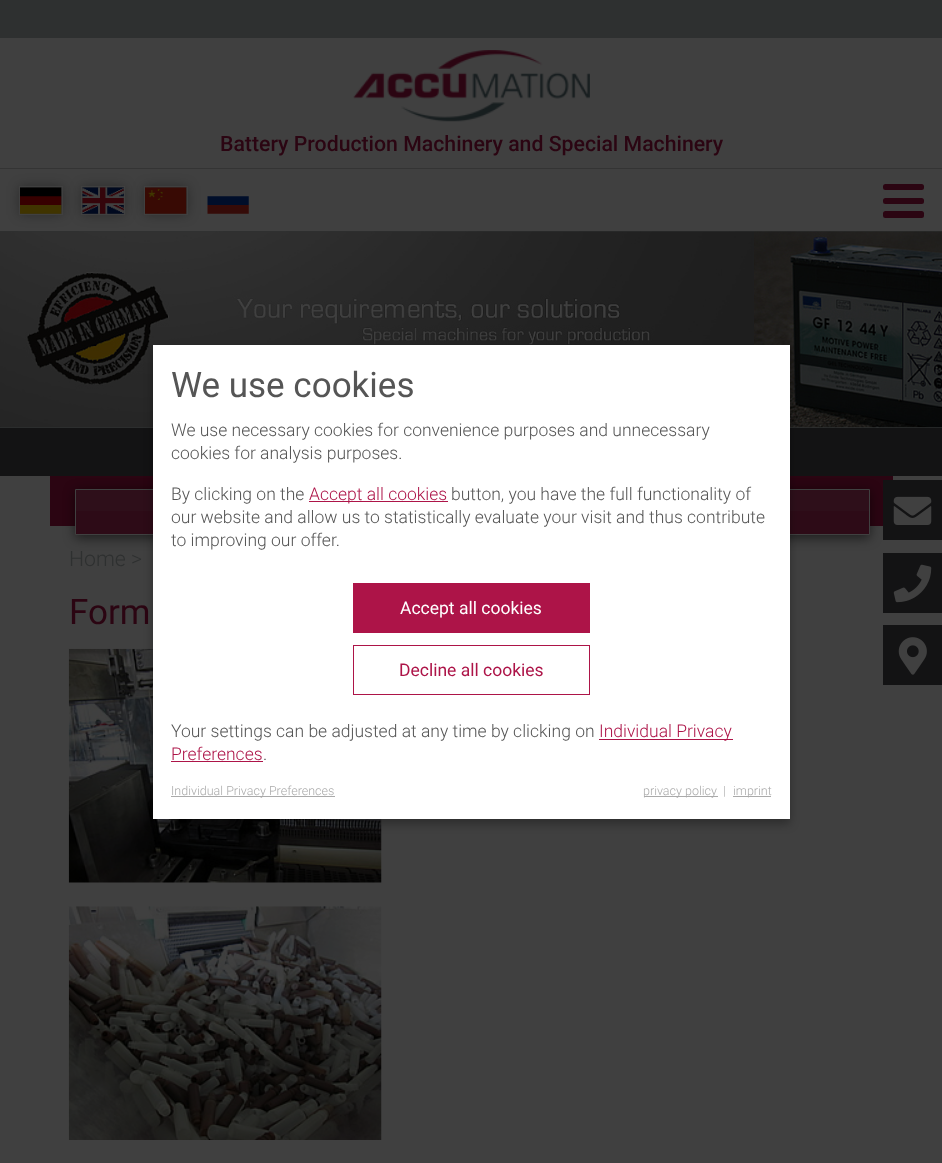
(async () => {
const canvas = document.querySelector("canvas")
canvas.width = 942
canvas.height = 1163
const c = canvas.getContext("2d")
c.miterLimit = 4
c.fontKerning = "normal"
function T(s,x,y){c.fillText(s,x,y)}
function R(x,y,w,h){c.fillRect(x,y,w,h)}
function Q(x,y,w,h,r){c.beginPath();c.roundRect(x,y,w,h,r);c.fill()}
async function I(src,x,y,w,h){const img=new Image();img.src=src;await img.decode();c.drawImage(img,x,y,w,h)}
c.fillStyle="#2e3030"
R(0,0,942,1163)
c.fillStyle="#404040"
R(0,38,942,130)
await I("1.png",353,50,237,72)
c.font="500 21.25px Roboto"
c.fillStyle="#2b0512"
T("Battery Production Machinery and Special Machinery",220,151)
c.fillStyle="#343434"
R(0,168,942,1)
c.fillStyle="#404040"
R(0,169,942,62)
c.fillStyle="#0000004d"
c.filter="blur(6px)"
c.beginPath()
c.rect(19,186,44,29)
c.fill()
c.filter="none"
await I("2.png",20,187,42,27)
c.strokeStyle="#404040"
c.strokeRect(19.5,186.5,43,28)
c.filter="blur(6px)"
c.beginPath()
c.rect(81,186,44,29)
c.fill()
c.filter="none"
await I("3.png",82,187,42,27)
c.strokeRect(81.5,186.5,43,28)
c.filter="blur(6px)"
c.beginPath()
c.rect(144,186,44,29)
c.fill()
c.filter="none"
await I("4.png",145,187,42,27)
c.strokeRect(144.5,186.5,43,28)
await I("5.png",207,196,42,18)
c.fillStyle="#2b0512"
Q(883,184,41,6,2.5)
Q(883,198,41,6,2.5)
Q(883,211,41,7,2.5)
await I("6.png",0,231,942,197)
c.fillStyle="#131314"
R(0,428,942,48)
c.fillStyle="#404040"
R(0,476,942,687)
c.fillStyle="#2b0512"
R(50,476,843,50)
c.fillStyle="#0000008c"
c.filter="blur(6px)"
c.beginPath()
c.rect(75,491,795,47)
c.fill()
c.filter="none"
c.fillStyle="#2d0b17"
c.beginPath()
c.rect(75.5,489.5,794,45)
c.fill()
c.stroke()
c.fillStyle="#40404012"
R(76,490,793,21)
c.font="300 21.25px Roboto"
c.fillStyle="#2e3030"
T("Home >",69,566)
c.font="35px Roboto"
c.fillStyle="#2b0512"
T("Form",69,624)
await I("7.png",68,648,314,235)
await I("8.png",68,906,314,234)
c.fillStyle="#0000004d"
c.filter="blur(5px)"
c.beginPath()
c.rect(153,350,637,474)
c.fill()
c.filter="none"
c.fillStyle="#fff"
R(153,345,637,474)
c.fillStyle="#555"
T("We use cookies",171,397)
c.font="300 17.5px Roboto"
T("We use necessary cookies for convenience purposes and unnecessary",171,436)
T("cookies for analysis purposes.",171,459)
T("By clicking on the",171,500)
c.fillStyle="#ad1448"
R(309,501,139,1)
T("Accept all cookies",309,500)
c.fillStyle="#555"
T("button, you have the full functionality of",451,500)
T("our website and allow us to statistically evaluate your visit and thus contribute",171,523)
T("to improving our offer.",171,546)
c.fillStyle="#ad1448"
R(353,583,237,50)
c.font="17.5px Roboto"
c.fillStyle="#fff"
T("Accept all cookies",400,614)
c.strokeStyle="#ad1448"
c.strokeRect(353.5,645.5,236,49)
c.fillStyle="#ad1448"
T("Decline all cookies",399,676)
c.font="300 17.5px Roboto"
c.fillStyle="#555"
T("Your settings can be adjusted at any time by clicking on",171,737)
c.fillStyle="#ad1448"
R(599,739,134,1)
T("Individual Privacy",599,737)
T("Preferences",171,760)
R(171,761,92,1)
c.fillStyle="#555"
T(".",263,760)
c.fillStyle="#aaa"
R(171,796,164,1)
c.font="300 12.5px Roboto"
T("Individual Privacy Preferences",171,795)
R(644,796,74,1)
T("privacy policy",643,795)
T("|",723,795)
R(733,796,38,1)
T("imprint",733,795)
c.fillStyle="#131314"
R(883,480,59,60)
await I("9.png",893,496,39,29)
R(883,553,59,60)
await I("10.png",893,564,39,39)
R(883,625,59,60)
await I("11.png",898,637,29,38)
})()
